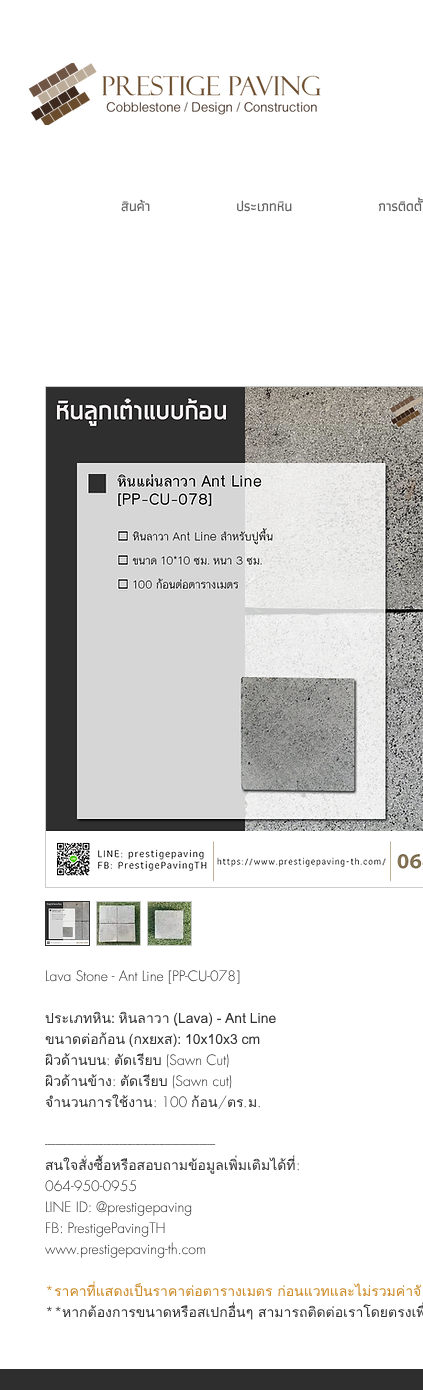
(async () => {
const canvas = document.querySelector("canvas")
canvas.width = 423
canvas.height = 1390
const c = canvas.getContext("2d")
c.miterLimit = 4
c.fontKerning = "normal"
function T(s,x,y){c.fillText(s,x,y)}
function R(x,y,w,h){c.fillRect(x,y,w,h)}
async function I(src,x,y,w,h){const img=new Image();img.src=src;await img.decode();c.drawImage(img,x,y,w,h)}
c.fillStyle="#fff"
R(0,0,423,1390)
await I("1.png",28,63,293,62)
c.font="bold 14px Athiti"
c.fillStyle="#605e5e"
T("สินค้า",121,211)
T("ประเภทหิน",236,211)
T("การติดตั้",378,211)
c.strokeStyle="#ccc"
c.strokeRect(45.5,386.5,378,501)
await I("2.png",46,387,377,495)
c.strokeStyle="#2f2e2e"
c.strokeRect(45.5,901.5,44,44)
await I("3.png",46,902,43,43)
c.strokeStyle="#ccc"
c.strokeRect(96.5,901.5,44,44)
await I("4.png",97,902,43,43)
c.strokeRect(147.5,901.5,44,44)
await I("5.png",148,902,43,43)
c.font="300 14px futura"
c.fillStyle="#2f2e2e"
T("Lava Stone - Ant Line [PP-CU-078]",45,981)
c.wordSpacing="-1px"
c.font="14px Loma"
T("ประเภทหิน: หินลาวา (ฺLava) - Ant Line",45,1023)
T("ขนาดต่อก้อน (กxยxส): 10x10x3 cm",45,1044)
c.save()
c.beginPath()
c.rect(45,966,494,357)
c.clip()
c.wordSpacing="0px"
T("ผิวด้านบน",45,1065)
c.restore()
c.wordSpacing="0px"
c.font="300 14px futura"
T(":",106,1065)
c.font="14px Loma"
T("ตัดเรียบ",114,1065)
c.font="300 14px futura"
T("(Sawn Cut)",166,1065)
c.save()
c.beginPath()
c.rect(45,966,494,357)
c.clip()
c.font="14px Loma"
T("ผิวด้านข้าง",45,1086)
c.restore()
T(":",112,1086)
c.font="14px Loma"
T("ตัดเรียบ",120,1086)
c.font="300 14px futura"
T("(Sawn cut)",172,1086)
c.save()
c.beginPath()
c.rect(45,966,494,357)
c.clip()
c.font="14px Loma"
T("จำนวนการใช้งาน",45,1107)
c.restore()
T(": 100",153,1107)
c.font="14px Loma"
T("ก้อน",191,1107)
c.font="300 14px futura"
T("/",218,1107)
c.font="14px Loma"
T("ตร",227,1107)
c.font="300 14px futura"
T(".",243,1107)
c.font="14px Loma"
T("ม",248,1107)
c.font="300 14px futura"
T(".",257,1107)
T("----------------------------------------------------------------",45,1149)
c.font="14px Loma"
T("สนใจสั่งซื้อหรือสอบถามข้อมูลเพิ่มเติมได้ที่",45,1170)
c.font="300 14px futura"
T(":",296,1170)
T("064-950-0955",45,1191)
T("LINE ID: @prestigepaving",45,1212)
T("FB: PrestigePavingTH",45,1233)
T("www.prestigepaving-th.com",45,1254)
c.fillStyle="#cc8823"
T("*",45,1296)
c.font="14px Loma"
T("ราคาที่แสดงเป็นราคาต่อตารางเมตร ก่อนแวทและไม่รวมค่าจั",54,1296)
c.font="300 14px futura"
c.fillStyle="#2f2e2e"
T("**",45,1317)
c.font="14px Loma"
T("หากต้องการขนาดหรือสเปกอื่นๆ สามารถติดต่อเราโดยตรงเพื่",62,1317)
R(0,1369,423,21)
})()
